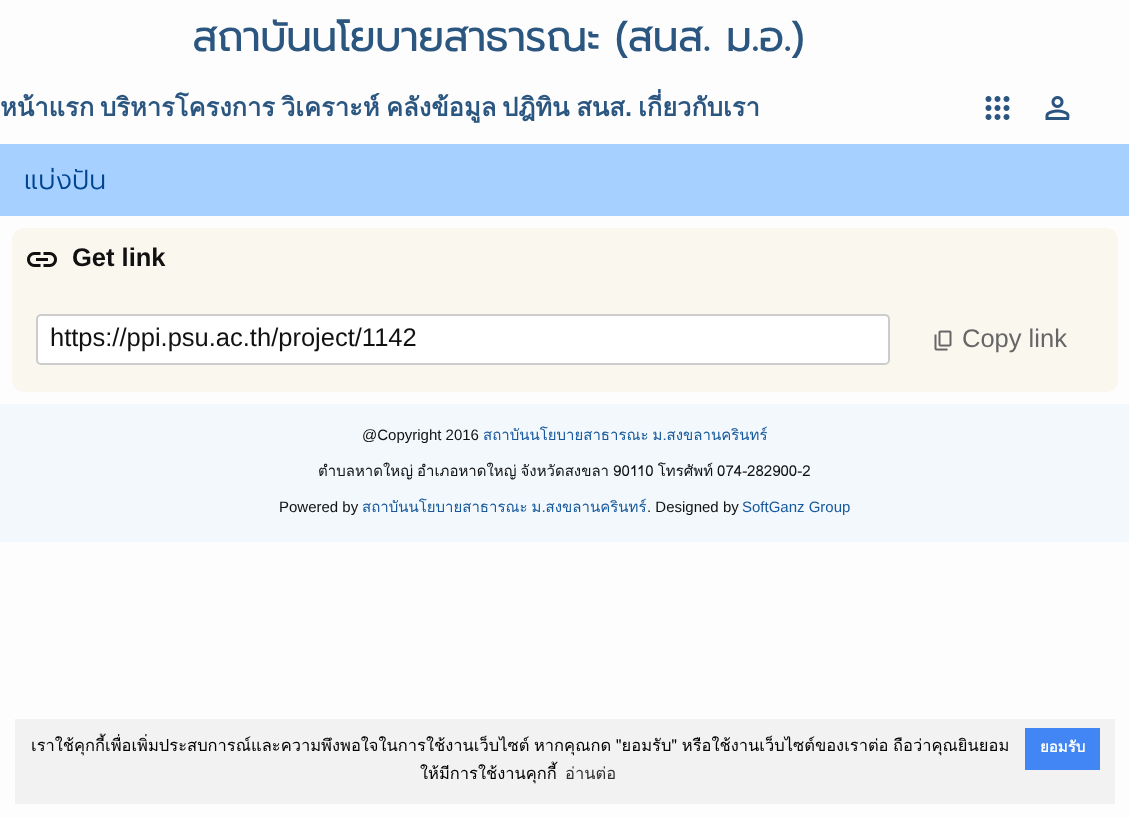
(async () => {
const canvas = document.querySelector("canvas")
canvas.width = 1129
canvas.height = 818
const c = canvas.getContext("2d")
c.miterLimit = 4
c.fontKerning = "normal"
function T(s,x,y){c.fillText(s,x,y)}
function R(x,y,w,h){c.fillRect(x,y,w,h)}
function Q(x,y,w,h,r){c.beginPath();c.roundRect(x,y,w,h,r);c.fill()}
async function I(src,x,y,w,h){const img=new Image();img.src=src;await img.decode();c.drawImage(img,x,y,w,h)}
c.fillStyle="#fdfdfd"
R(0,0,1129,818)
c.font="bold 40.75px Prompt"
c.fillStyle="#2b5680"
T("สถาบันนโยบายสาธารณะ (สนส. ม.อ.)",192,51)
c.font="bold 25.5px Loma"
T("หน้าแรก",0,116)
T("บริหารโครงการ",100,116)
T("วิเคราะห์",281,116)
T("คลังข้อมูล",386,116)
c.wordSpacing="-2px"
T("ปฎิทิน สนส",502,116)
c.wordSpacing="0px"
c.font="bold 25.5px Liberation Sans"
T(".",625,116)
c.font="bold 25.5px Loma"
T("เกี่ยวกับเรา",638,116)
await I("1.png",985,96,25,24)
await I("2.png",1045,96,25,24)
c.fillStyle="#a6d0ff"
R(0,144,1129,72)
c.font="300 27px Prompt"
c.fillStyle="#00448f"
T("แบ่งปัน",24,189)
c.fillStyle="#faf7ee"
Q(12,228,1106,164,12)
await I("3.png",27,252,30,15)
c.font="bold 25.5px Liberation Sans"
c.fillStyle="#111"
T("Get link",72,266)
c.fillStyle="#fff"
c.beginPath()
c.roundRect(37,315,852,49,4)
c.fill()
c.strokeStyle="#ccc"
c.lineWidth=2
c.stroke()
c.font="25.5px Liberation Sans"
c.fillStyle="#111"
T("https://ppi.psu.ac.th/project/1142",50,346)
await I("4.png",934,330,18,21)
c.fillStyle="#666"
T("Copy link",962,347)
c.fillStyle="#f2f8fc"
R(0,404,1129,138)
c.font="15px Liberation Sans"
c.fillStyle="#111"
T("@Copyright 2016",362,440)
c.wordSpacing="-1px"
c.font="15px Loma"
c.fillStyle="#17599c"
T("สถาบันนโยบายสาธารณะ ม.สงขลานครินทร์",483,440)
c.fillStyle="#111"
T("ตำบลหาดใหญ่ อำเภอหาดใหญ่ จังหวัดสงขลา 90110 โทรศัพท์ 074-282900-2",318,476)
c.wordSpacing="0px"
c.font="15px Liberation Sans"
T("Powered by",279,512)
c.wordSpacing="-1px"
c.font="15px Loma"
c.fillStyle="#17599c"
T("สถาบันนโยบายสาธารณะ ม.สงขลานครินทร์",362,512)
c.wordSpacing="0px"
c.font="15px Liberation Sans"
c.fillStyle="#111"
T(". Designed by",647,512)
c.fillStyle="#17599c"
T("SoftGanz Group",742,512)
c.fillStyle="#f2f2f2"
R(15,719,1100,85)
c.wordSpacing="-1px"
c.font="16.5px Loma"
c.fillStyle="#000"
T("เราใช้คุกกี้เพื่อเพิ่มประสบการณ์และความพึงพอใจในการใช้งานเว็บไซต์ หากคุณกด \"ยอมรับ\" หรือใช้งานเว็บไซต์ของเราต่อ ถือว่าคุณยินยอม",31,751)
c.wordSpacing="0px"
T("ให้มีการใช้งานคุกกี้",420,779)
c.fillStyle="#303030"
T("อ่านต่อ",565,779)
c.fillStyle="#4285f4"
R(1025,728,75,42)
c.font="bold 15px Loma"
c.fillStyle="#fff"
T("ยอมรับ",1040,752)
})()
